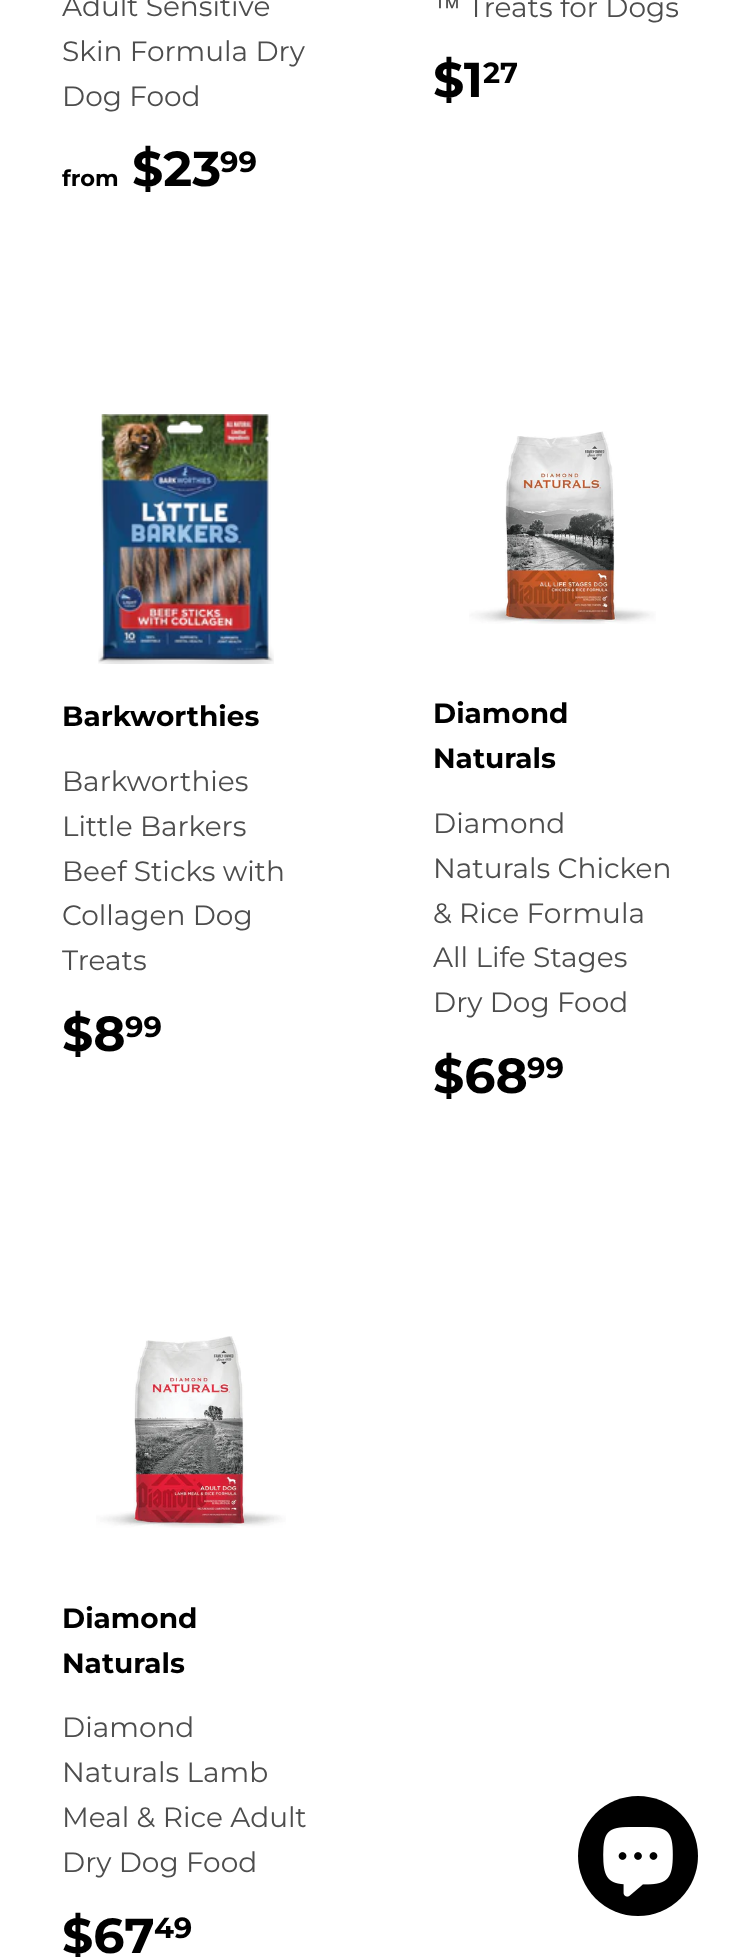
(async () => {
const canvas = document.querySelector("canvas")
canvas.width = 741
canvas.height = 1957
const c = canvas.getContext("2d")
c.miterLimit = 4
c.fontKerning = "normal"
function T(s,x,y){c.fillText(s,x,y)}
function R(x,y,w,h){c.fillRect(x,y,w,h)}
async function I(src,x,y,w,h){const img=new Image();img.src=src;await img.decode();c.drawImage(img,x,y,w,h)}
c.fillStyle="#fff"
R(0,0,741,1957)
c.font="28px Montserrat"
c.fillStyle="#4d4d4d"
T("Adult Sensitive",62,16)
T("Skin Formula Dry",62,61)
T("Dog Food",62,106)
c.font="bold 49px Montserrat"
c.fillStyle="#000"
T("$23",132,186)
c.font="bold 29px Montserrat"
T("99",220,172)
c.font="bold 22.5px Montserrat"
T("from",62,186)
c.font="28px Liberation Sans"
c.fillStyle="#4d4d4d"
T("™",433,17)
c.font="28px Montserrat"
T("Treats for Dogs",468,17)
c.font="bold 49px Montserrat"
c.fillStyle="#000"
T("$1",433,97)
c.font="bold 29px Montserrat"
T("27",483,83)
await I("1.png",98,414,176,250)
c.font="bold 28px Montserrat"
T("Barkworthies",62,726)
c.font="28px Montserrat"
c.fillStyle="#4d4d4d"
T("Barkworthies",62,791)
T("Little Barkers",62,836)
T("Beef Sticks with",62,881)
T("Collagen Dog",62,925)
T("Treats",62,970)
c.font="bold 49px Montserrat"
c.fillStyle="#000"
T("$8",62,1051)
c.font="bold 29px Montserrat"
T("99",125,1037)
await I("2.png",469,431,187,193)
c.font="bold 28px Montserrat"
T("Diamond",433,723)
T("Naturals",433,768)
c.font="28px Montserrat"
c.fillStyle="#4d4d4d"
T("Diamond",433,833)
T("Naturals Chicken",433,878)
T("& Rice Formula",433,923)
T("All Life Stages",433,967)
T("Dry Dog Food",433,1012)
c.font="bold 49px Montserrat"
c.fillStyle="#000"
T("$68",433,1093)
c.font="bold 29px Montserrat"
T("99",527,1078)
await I("3.png",96,1336,190,192)
c.font="bold 28px Montserrat"
T("Diamond",62,1628)
T("Naturals",62,1673)
c.font="28px Montserrat"
c.fillStyle="#4d4d4d"
T("Diamond",62,1737)
T("Naturals Lamb",62,1782)
T("Meal & Rice Adult",62,1827)
T("Dry Dog Food",62,1872)
c.font="bold 49px Montserrat"
c.fillStyle="#000"
T("$67",62,1953)
c.font="bold 29px Montserrat"
T("49",154,1938)
c.beginPath()
c.arc(638,1856,60,0,7)
c.fill()
await I("4.png",603,1827,70,70)
})()
